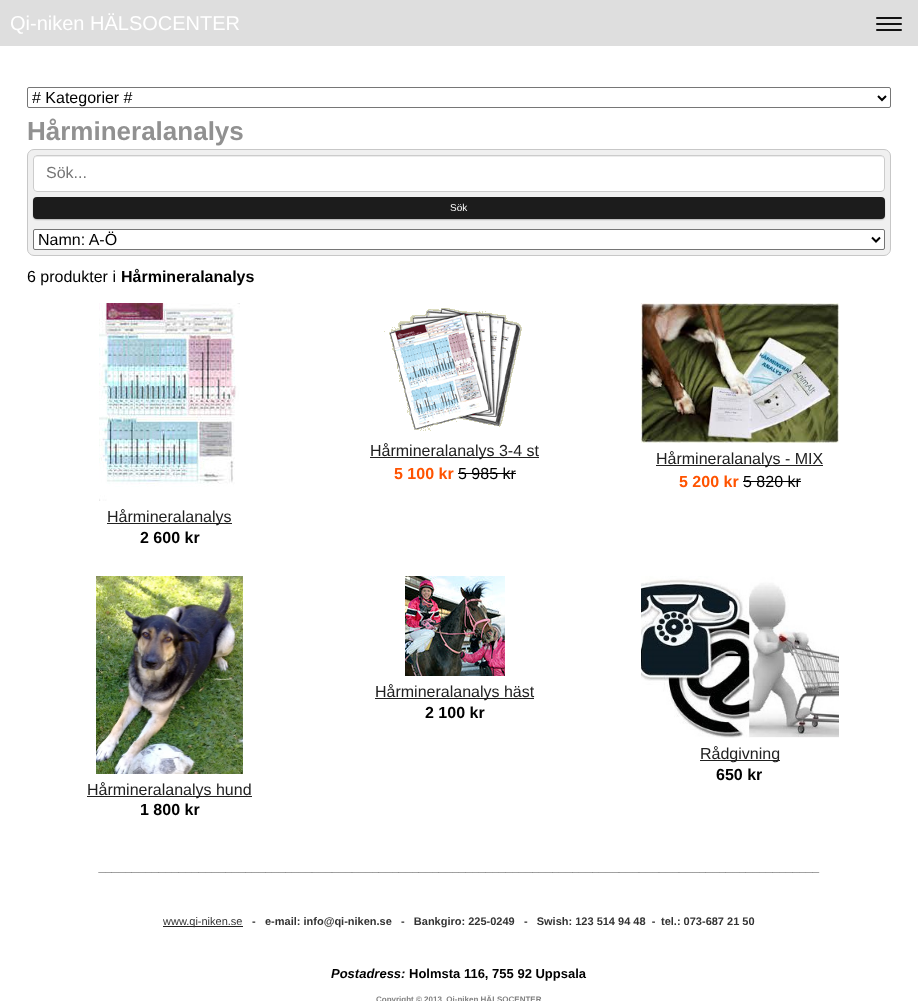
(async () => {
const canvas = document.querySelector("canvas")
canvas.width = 918
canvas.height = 1001
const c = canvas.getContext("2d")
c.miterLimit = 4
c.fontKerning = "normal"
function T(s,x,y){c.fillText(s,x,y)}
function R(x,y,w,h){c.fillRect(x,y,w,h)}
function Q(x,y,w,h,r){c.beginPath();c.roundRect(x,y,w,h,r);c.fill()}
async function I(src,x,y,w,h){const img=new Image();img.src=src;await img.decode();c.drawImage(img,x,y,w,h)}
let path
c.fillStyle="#fff"
R(0,0,918,1001)
c.fillStyle="#dedede"
R(0,0,918,46)
c.font="20px Liberation Sans"
c.fillStyle="#fff"
T("Qi-niken HÄLSOCENTER",10,30)
c.fillStyle="#121212"
Q(876,17,26,2,1)
Q(876,23,26,2,1)
Q(876,29,26,2,1)
c.beginPath()
c.roundRect(27.5,87.5,863,20,1.5)
c.strokeStyle="#767676"
c.stroke()
path = new Path2D("M878 96l4 4l4-4")
c.strokeStyle="#000"
c.lineWidth=2
c.stroke(path)
c.font="16px Liberation Sans"
c.fillStyle="#000"
T("# Kategorier #",32,103)
c.font="bold 26px Liberation Sans"
c.fillStyle="#919191"
T("Hårmineralanalys",27,140)
c.fillStyle="#f0f0f0"
c.beginPath()
c.roundRect(27.5,149.5,863,106,6.5)
c.fill()
c.strokeStyle="#c7c7c7"
c.lineWidth=1
c.stroke()
c.fillStyle="#fff"
Q(33,155,852,37,4)
c.fillStyle="#ececec"
path = new Path2D("M37 157h844c2 0 3 1 3 3c0-2-1-4-3-4h-844c-2 0-3 2-3 4c0-2 1-3 3-3z")
c.fill(path)
c.beginPath()
c.roundRect(33.5,155.5,851,36,3.5)
c.strokeStyle="#ccc"
c.stroke()
c.font="16px Liberation Sans"
c.fillStyle="#757575"
T("Sök...",46,178)
c.fillStyle="#00000099"
c.filter="blur(1px)"
c.beginPath()
c.roundRect(34,199,850,20,3)
c.fill()
c.filter="none"
c.fillStyle="#1c1c1c"
Q(33,197,852,22,4)
c.font="10px Liberation Sans"
c.fillStyle="#fff"
T("Sök",450,211)
c.beginPath()
c.roundRect(33.5,229.5,851,20,1.5)
c.fill()
c.strokeStyle="#767676"
c.stroke()
path = new Path2D("M872 237.5l4 4l4-4")
c.strokeStyle="#000"
c.lineWidth=2
c.stroke(path)
c.font="16px Liberation Sans"
c.fillStyle="#000"
T("Namn: A-Ö",38,245)
T("6 produkter i",27,282)
c.font="bold 16px Liberation Sans"
T("Hårmineralanalys",121,282)
await I("1.png",384,308,138,123)
c.fillStyle="#212121"
R(370,457,169,1)
c.font="16px Liberation Sans"
T("Hårmineralanalys 3-4 st",370,456)
c.font="bold 16px Liberation Sans"
c.fillStyle="#ff5300"
T("5 100 kr",394,479)
c.font="16px Liberation Sans"
c.fillStyle="#000"
T("5 985 kr",458,479)
R(458,473,58,1)
await I("2.png",641,303,198,140)
c.fillStyle="#212121"
R(656,465,167,1)
T("Hårmineralanalys - MIX",656,464)
c.font="bold 16px Liberation Sans"
c.fillStyle="#ff5300"
T("5 200 kr",679,487)
c.font="16px Liberation Sans"
c.fillStyle="#000"
T("5 820 kr",743,487)
R(743,481,58,1)
await I("3.png",99,303,141,198)
c.fillStyle="#212121"
R(107,523,125,1)
T("Hårmineralanalys",107,522)
c.font="bold 16px Liberation Sans"
c.fillStyle="#000"
T("2 600 kr",140,543)
await I("4.png",405,576,100,100)
c.fillStyle="#212121"
R(375,698,159,1)
c.font="16px Liberation Sans"
T("Hårmineralanalys häst",375,697)
c.font="bold 16px Liberation Sans"
c.fillStyle="#000"
T("2 100 kr",425,718)
await I("5.png",641,576,198,162)
c.fillStyle="#212121"
R(700,760,80,1)
c.font="16px Liberation Sans"
T("Rådgivning",700,759)
c.font="bold 16px Liberation Sans"
c.fillStyle="#000"
T("650 kr",716,780)
await I("6.png",96,576,147,198)
c.fillStyle="#212121"
R(87,796,165,1)
c.font="16px Liberation Sans"
T("Hårmineralanalys hund",87,795)
c.font="bold 16px Liberation Sans"
c.fillStyle="#000"
T("1 800 kr",140,815)
c.font="italic bold 12px Liberation Sans"
c.fillStyle="#333"
T("____________________________________________________________________________________________________________",99,871)
c.fillStyle="#212121"
R(163,926,80,1)
c.font="11px Liberation Sans"
c.fillStyle="#333"
T("www.qi-niken.se",163,925)
c.font="bold 11px Liberation Sans"
T("-",252,925)
T("e-mail: info@qi-niken.se",265,925)
T("-   Bankgiro: 225-0249   -   Swish: 123 514 94 48  -",401,925)
T("tel.: 073-687 21 50",661,925)
c.font="italic bold 13px Liberation Sans"
c.fillStyle="#000"
T("Postadress:",331,978)
c.font="bold 13px Liberation Sans"
T("Holmsta 116, 755 92 Uppsala",409,978)
c.font="bold 8px Liberation Sans"
c.fillStyle="#808080"
T("Copyright © 2013  Qi-niken HÄLSOCENTER",376,1002)
})()
